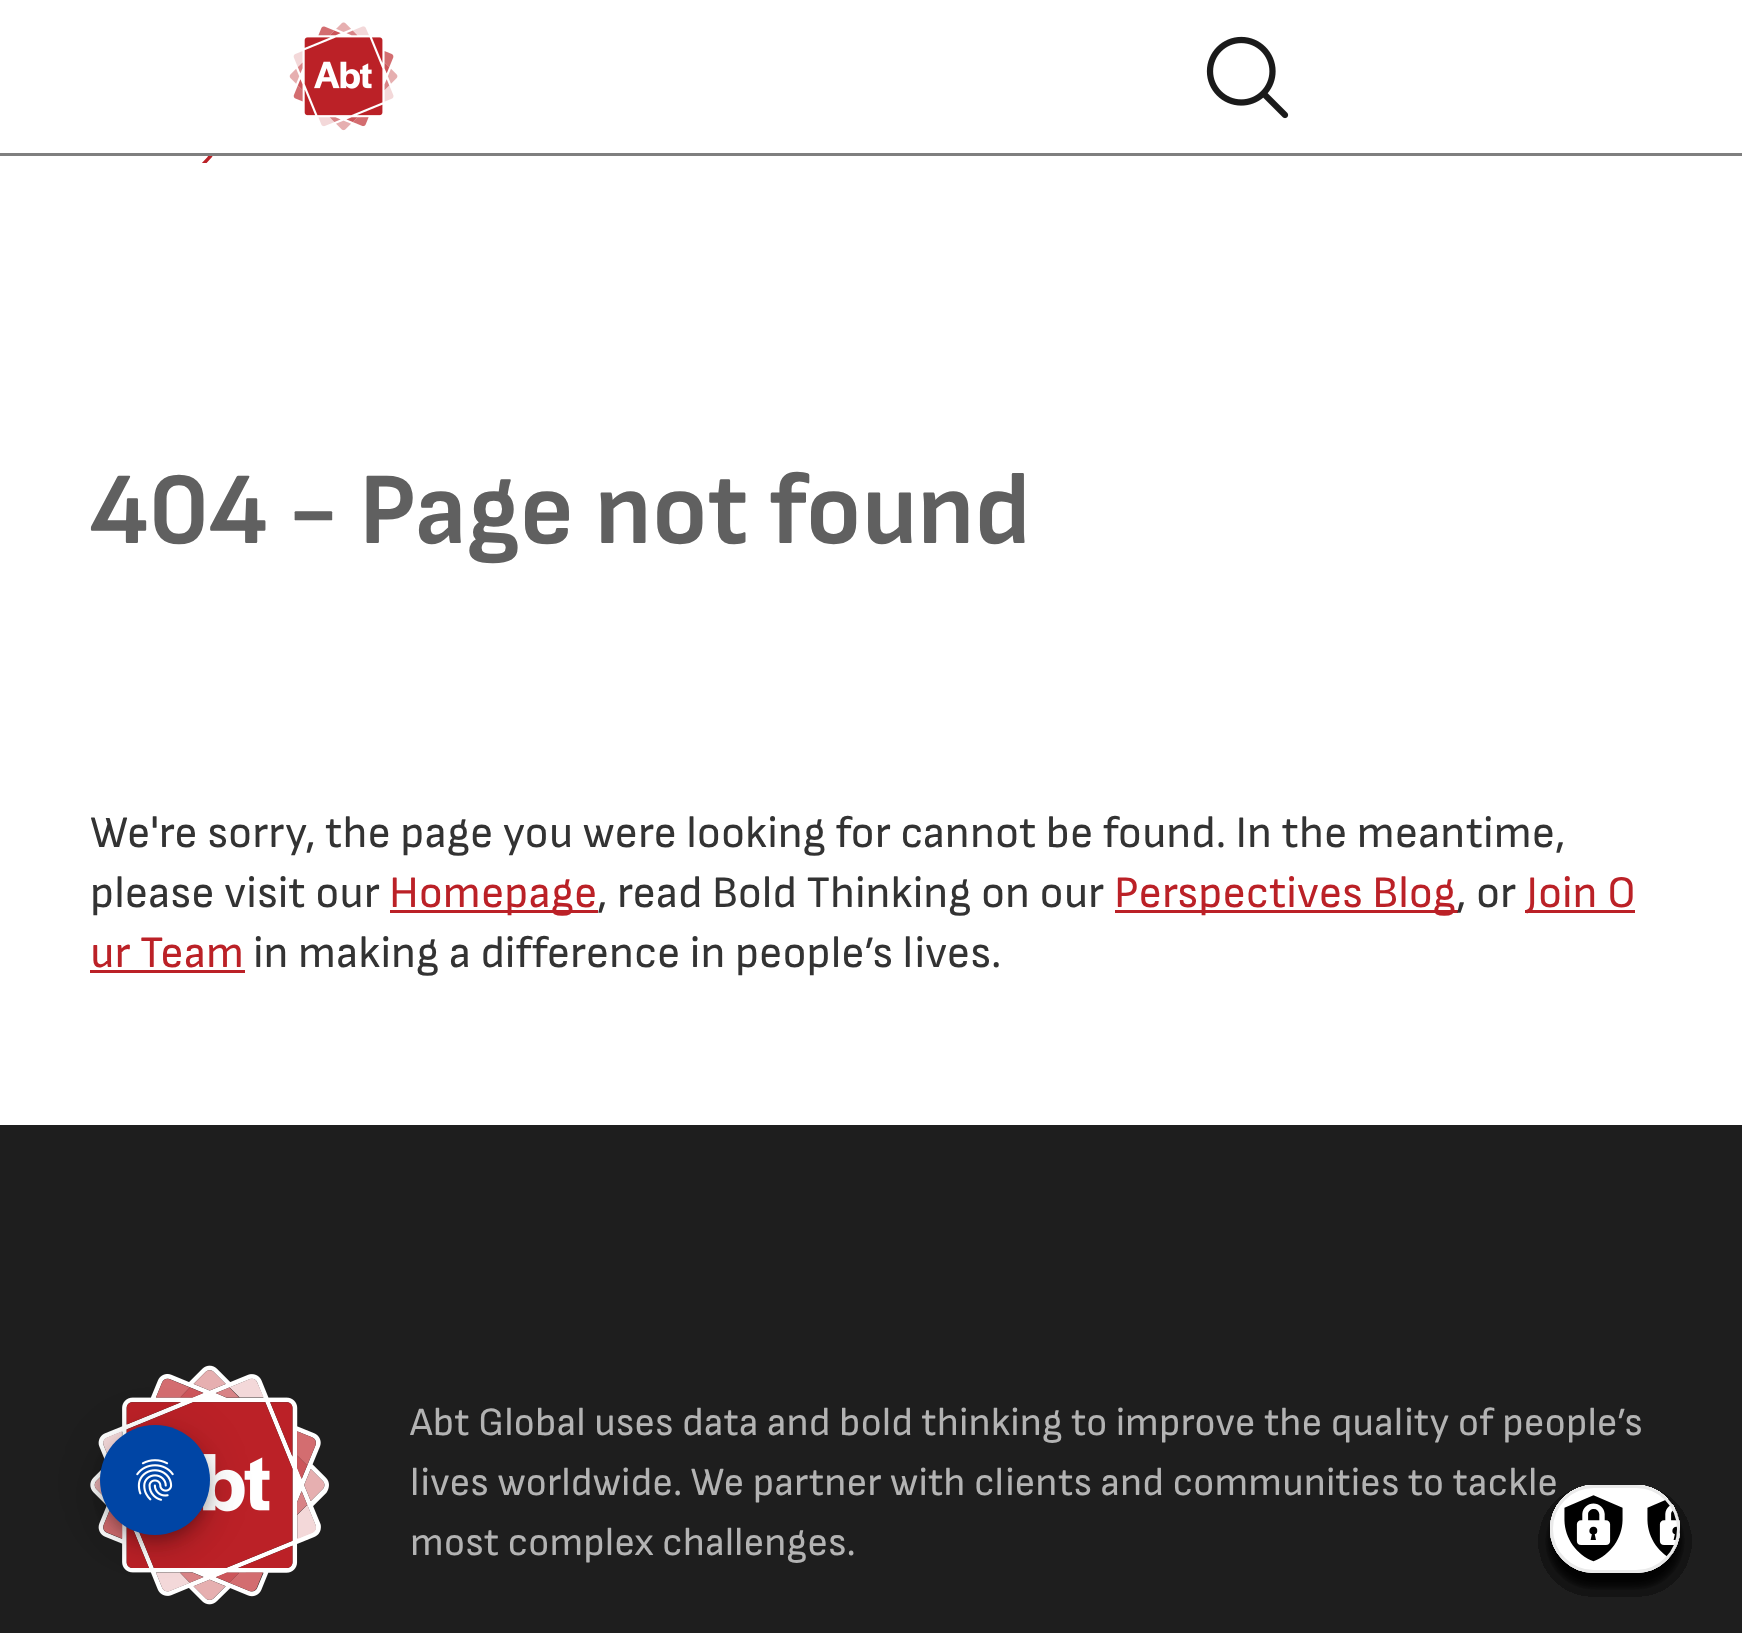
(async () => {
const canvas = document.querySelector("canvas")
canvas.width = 1742
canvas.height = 1633
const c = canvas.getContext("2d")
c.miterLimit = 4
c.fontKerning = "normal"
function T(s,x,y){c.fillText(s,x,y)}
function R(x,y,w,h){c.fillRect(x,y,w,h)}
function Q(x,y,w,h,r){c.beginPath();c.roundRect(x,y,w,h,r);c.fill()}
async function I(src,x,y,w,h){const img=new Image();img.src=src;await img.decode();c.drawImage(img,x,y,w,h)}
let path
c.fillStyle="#fff"
R(0,0,1742,1633)
c.save()
c.beginPath()
c.rect(200,150,13,13)
c.clip()
c.fillStyle="#bb2127"
path = new Path2D("M208 156.5l-8-9l2.5-2.5l10 11.5l-10 11l-2.5-2.5z")
c.fill(path)
c.restore()
R(202,150,8,3)
c.fillStyle="#7f7f7f"
R(0,153,1742,3)
await I("1.png",289,22,109,109)
await I("2.png",1206,36,83,83)
c.font="bold 102.5px Sofia Sans"
c.fillStyle="#606060"
T("404 - Page not found",90,543)
c.font="45px Sofia Sans"
c.fillStyle="#333"
T("We're sorry, the page you were looking for cannot be found. In the meantime,",90,847)
T("please visit our",90,907)
c.fillStyle="#bb2127"
R(390,910,208,3)
T("Homepage",389,907)
c.fillStyle="#333"
T(", read Bold Thinking on our",597,907)
c.fillStyle="#bb2127"
R(1115,910,343,3)
T("Perspectives Blog",1114,907)
c.fillStyle="#333"
T(", or",1456,907)
c.fillStyle="#bb2127"
R(1525,910,110,3)
T("Join O",1526,907)
T("ur Team",90,967)
R(90,970,155,3)
c.fillStyle="#333"
T("in making a difference in people’s lives.",253,967)
c.fillStyle="#1e1e1e"
R(0,1125,1742,508)
await I("4.png",90,1365,239,240)
c.fillStyle="#0000001f"
c.filter="blur(22.5px)"
c.beginPath()
c.roundRect(100,1428,110,110,55)
c.fill()
c.filter="none"
c.fillStyle="#00000024"
c.filter="blur(12.5px)"
c.beginPath()
c.roundRect(100,1440,110,110,55)
c.fill()
c.filter="none"
c.fillStyle="#00000033"
c.filter="blur(6px)"
c.beginPath()
c.roundRect(103,1435,105,105,52.5)
c.fill()
c.filter="none"
c.fillStyle="#0045a5"
c.beginPath()
c.arc(155,1480,55,0,7)
c.fill()
await I("3.png",136,1459,38,42)
c.font="40px 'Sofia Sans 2'"
c.fillStyle="#b3b3b3"
T("Abt Global uses data and bold thinking to improve the quality of people’s",410,1435)
T("lives worldwide. We partner with clients and communities to tackle",410,1495)
T("most complex challenges.",410,1555)
await I("15.png",1668,1499,12,59)
c.beginPath()
c.roundRect(1551.5,1486.5,127,85,42.5)
c.strokeStyle="#eaeaea"
c.lineWidth=3
c.stroke()
c.fillStyle="#00000033"
c.filter="blur(6px)"
c.beginPath()
c.roundRect(1550,1498,130,87,43.5)
c.fill()
c.filter="none"
await I("5.png",1668,1499,12,59)
c.beginPath()
c.roundRect(1551.5,1486.5,127,85,42.5)
c.stroke()
c.filter="blur(6px)"
c.beginPath()
c.roundRect(1550,1498,130,87,43.5)
c.fill()
c.filter="none"
await I("6.png",1668,1499,12,59)
c.beginPath()
c.roundRect(1551.5,1486.5,127,85,42.5)
c.stroke()
c.filter="blur(6px)"
c.beginPath()
c.roundRect(1550,1498,130,87,43.5)
c.fill()
c.filter="none"
await I("7.png",1668,1499,12,59)
c.beginPath()
c.roundRect(1551.5,1486.5,127,85,42.5)
c.stroke()
c.filter="blur(6px)"
c.beginPath()
c.roundRect(1550,1498,130,87,43.5)
c.fill()
c.filter="none"
await I("8.png",1668,1499,12,59)
c.beginPath()
c.roundRect(1551.5,1486.5,127,85,42.5)
c.stroke()
c.filter="blur(6px)"
c.beginPath()
c.roundRect(1550,1498,130,87,43.5)
c.fill()
c.filter="none"
await I("9.png",1668,1499,12,59)
c.beginPath()
c.roundRect(1551.5,1486.5,127,85,42.5)
c.stroke()
c.filter="blur(6px)"
c.beginPath()
c.roundRect(1550,1498,130,87,43.5)
c.fill()
c.filter="none"
await I("10.png",1668,1499,12,59)
c.beginPath()
c.roundRect(1551.5,1486.5,127,85,42.5)
c.stroke()
c.filter="blur(6px)"
c.beginPath()
c.roundRect(1550,1498,130,87,43.5)
c.fill()
c.filter="none"
await I("11.png",1668,1499,12,59)
c.beginPath()
c.roundRect(1551.5,1486.5,127,85,42.5)
c.stroke()
c.filter="blur(6px)"
c.beginPath()
c.roundRect(1550,1498,130,87,43.5)
c.fill()
c.filter="none"
await I("12.png",1668,1499,12,59)
c.beginPath()
c.roundRect(1551.5,1486.5,127,85,42.5)
c.stroke()
c.filter="blur(6px)"
c.beginPath()
c.roundRect(1550,1498,130,87,43.5)
c.fill()
c.filter="none"
await I("13.png",1668,1499,12,59)
c.beginPath()
c.roundRect(1551.5,1486.5,127,85,42.5)
c.stroke()
c.filter="blur(6px)"
c.beginPath()
c.roundRect(1550,1498,130,87,43.5)
c.fill()
c.filter="none"
c.fillStyle="#fff"
Q(1550,1485,130,88,44)
await I("14.png",1564,1495,116,67)
c.beginPath()
c.roundRect(1551.5,1486.5,127,85,42.5)
c.stroke()
})()
